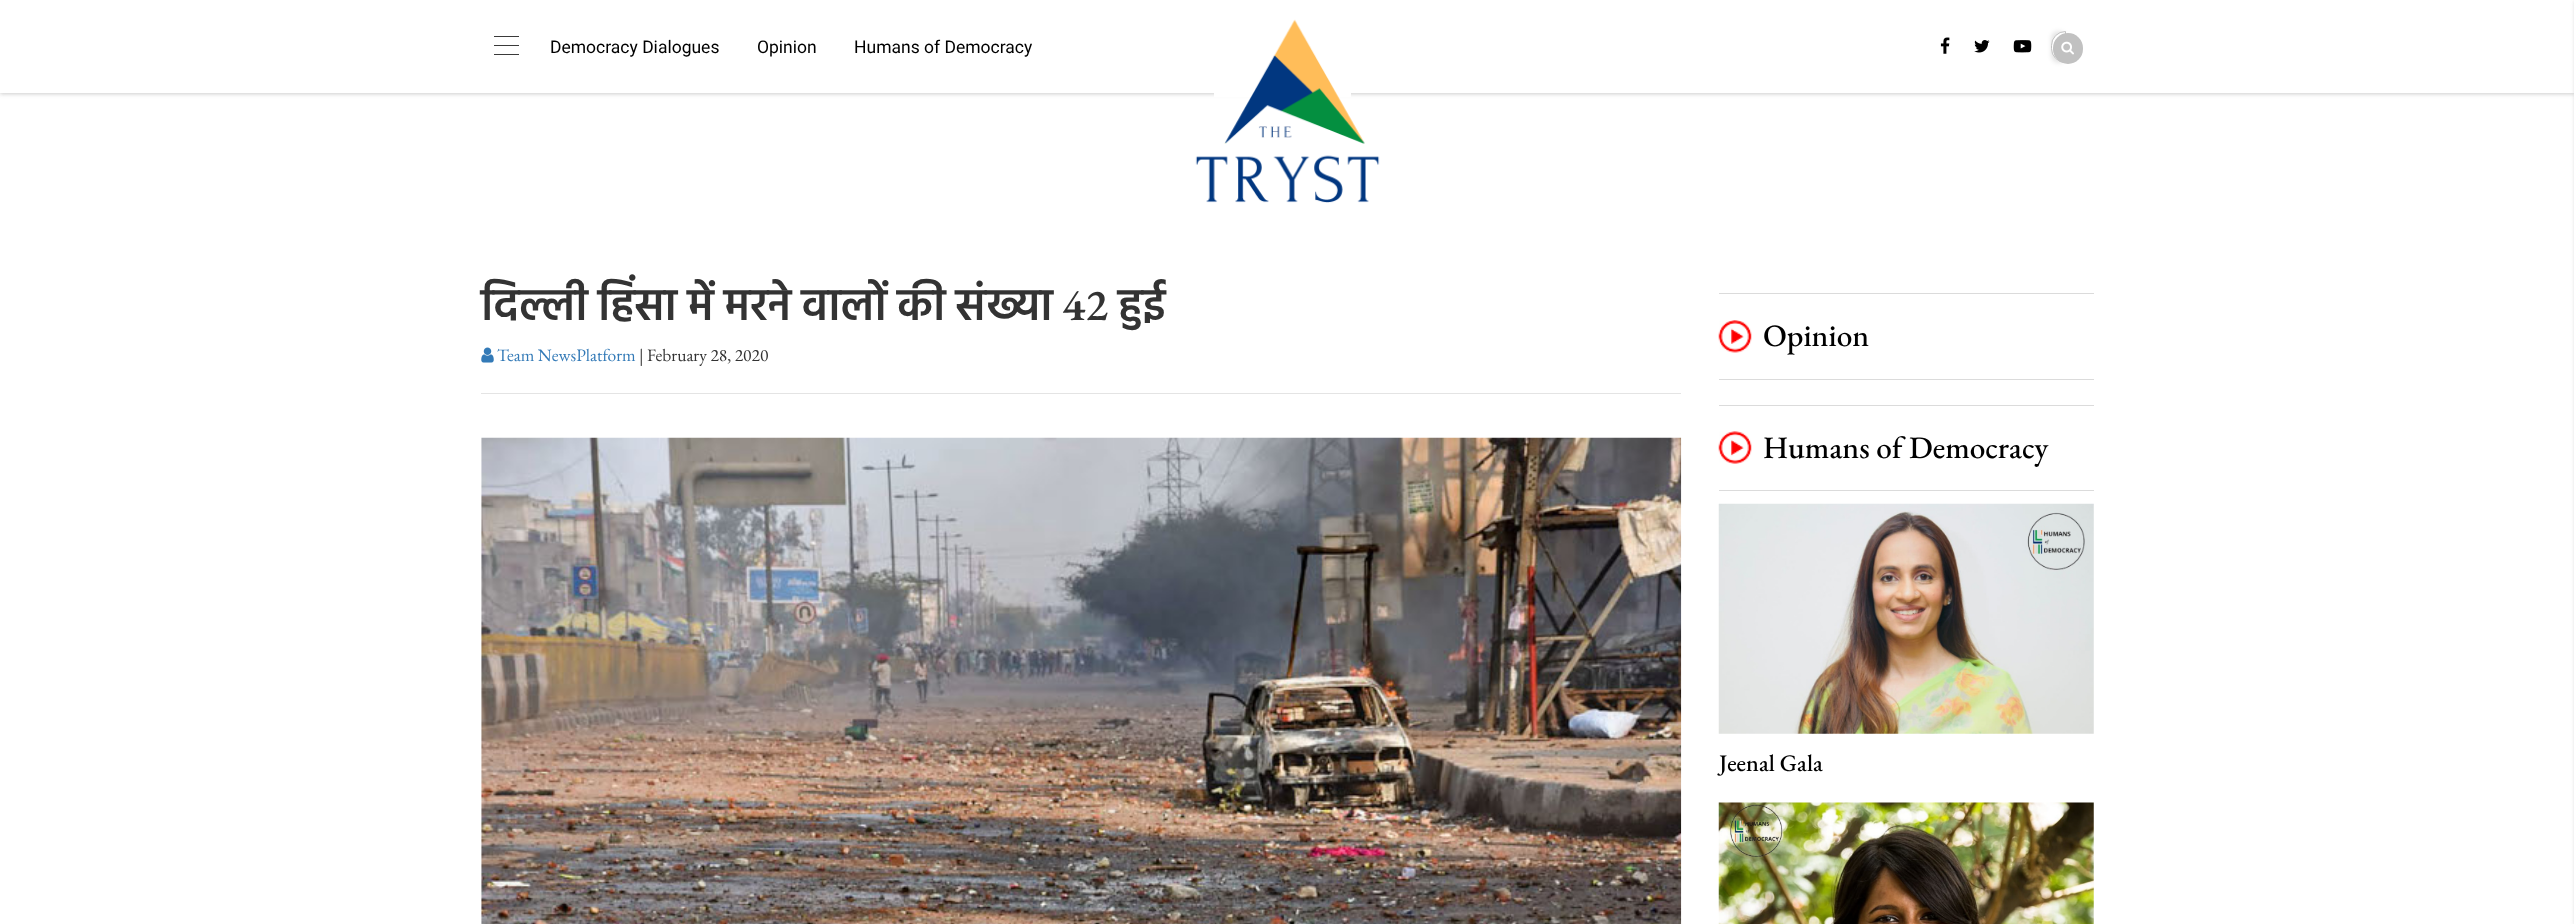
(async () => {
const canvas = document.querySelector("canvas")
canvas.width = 2574
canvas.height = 924
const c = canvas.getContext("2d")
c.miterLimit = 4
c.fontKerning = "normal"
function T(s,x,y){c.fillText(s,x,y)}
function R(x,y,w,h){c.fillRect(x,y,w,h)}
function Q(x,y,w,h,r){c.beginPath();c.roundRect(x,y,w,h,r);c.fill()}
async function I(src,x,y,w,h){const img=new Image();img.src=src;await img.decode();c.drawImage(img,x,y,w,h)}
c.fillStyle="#fff"
R(0,0,2574,924)
c.fillStyle="#3a3a3a42"
c.filter="blur(2px)"
c.beginPath()
c.rect(0,1,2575,93)
c.fill()
c.filter="none"
c.fillStyle="#fff"
R(0,0,2574,93)
c.fillStyle="#3a3a3a"
R(494,45,25,1)
R(494,36,25,1)
R(494,54,25,1)
c.font="17.5px Roboto"
c.fillStyle="#000"
T("Democracy Dialogues",550,53)
T("Opinion",757,53)
T("Humans of Democracy",854,53)
await I("1.png",1940,37,10,17)
await I("2.png",1974,40,16,13)
await I("3.png",2013,40,19,13)
c.fillStyle="#0000001a"
c.filter="blur(2px)"
c.beginPath()
c.roundRect(2051,31,15,32,15)
c.fill()
c.filter="none"
c.fillStyle="#fff"
c.beginPath()
c.roundRect(2051.5,31.5,14,31,[14.5,0,0,14.5])
c.fill()
c.strokeStyle="#c1c1c1"
c.stroke()
Q(2065,34,13,26,4)
c.fillStyle="#c1c1c1"
Q(2053,33,30,31,15)
await I("4.png",2061,41,13,14)
c.fillStyle="#fff"
R(1214,93,137,4)
await I("5.png",1195,19,185,184)
c.fillStyle="#3a3a3a42"
c.filter="blur(2px)"
c.beginPath()
c.rect(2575,1,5,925)
c.fill()
c.filter="none"
c.wordSpacing="-0.75px"
c.font="600 45px Hind"
c.fillStyle="#333"
T("दिल्ली हिंसा में मरने वालों की संख्या",481,320)
c.wordSpacing="0px"
c.font="600 45px EB Garamond"
T("42",1062,320)
c.font="600 45px Hind"
T("हुई",1118,320)
await I("6.png",481,347,13,16)
c.font="17.5px EB Garamond"
c.fillStyle="#337ab7"
T("Team NewsPlatform",497,361)
c.fillStyle="#333"
T("| February 28, 2020",639,361)
c.fillStyle="#e4e4e4"
R(481,393,1200,1)
await I("7.png",481,437,1201,487)
await I("8.png",1718,320,34,33)
c.fillStyle="#dbdbdb"
R(1719,293,375,1)
R(1719,379,375,1)
c.font="500 31.25px EB Garamond"
c.fillStyle="#000"
T("Opinion",1763,346)
await I("9.png",1718,431,34,33)
c.fillStyle="#dbdbdb"
R(1719,405,375,1)
R(1719,490,375,1)
c.fillStyle="#000"
T("Humans of Democracy",1763,458)
await I("10.png",1718,503,376,231)
c.font="500 23.75px EB Garamond"
T("Jeenal Gala",1719,771)
await I("11.png",1718,802,376,122)
})()
